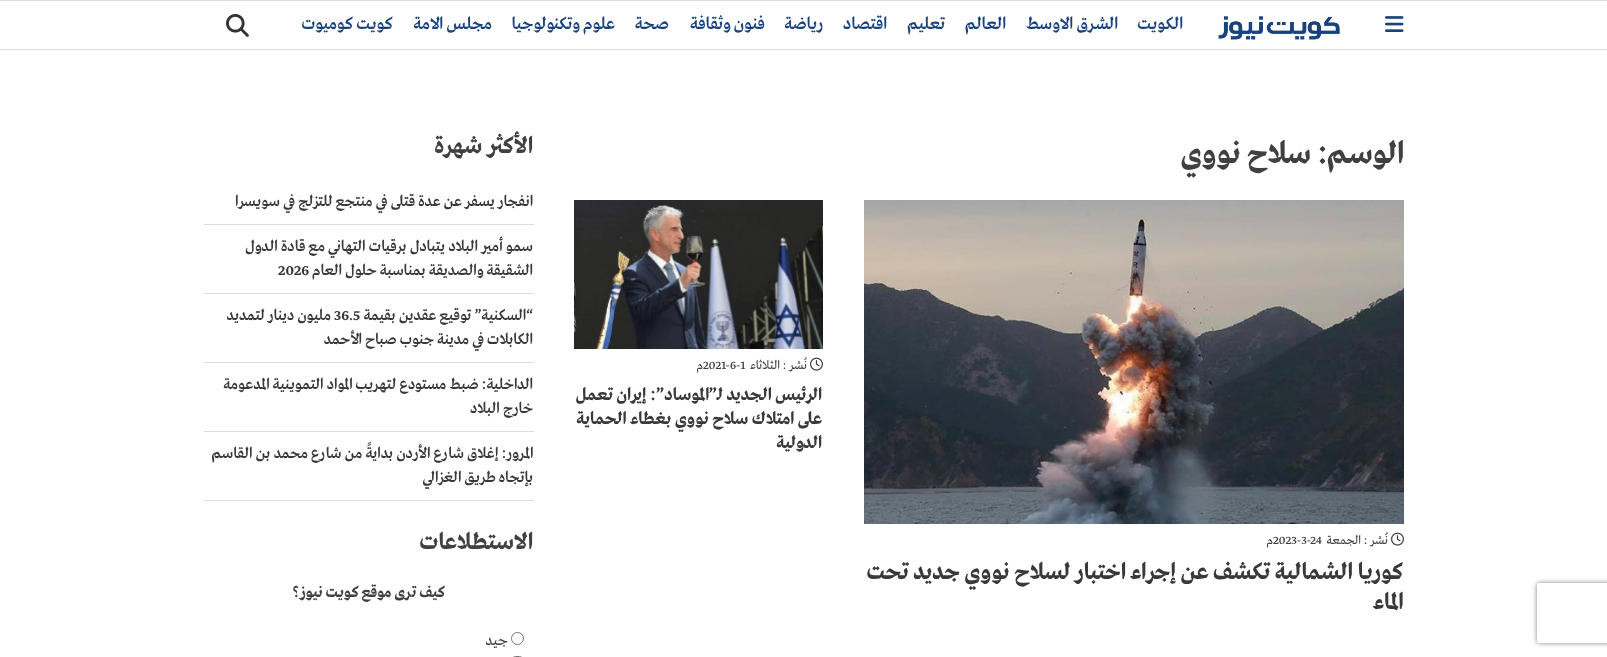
(async () => {
const canvas = document.querySelector("canvas")
canvas.width = 1607
canvas.height = 657
const c = canvas.getContext("2d")
c.miterLimit = 4
c.fontKerning = "normal"
function T(s,x,y){c.fillText(s,x,y)}
function R(x,y,w,h){c.fillRect(x,y,w,h)}
async function I(src,x,y,w,h){const img=new Image();img.src=src;await img.decode();c.drawImage(img,x,y,w,h)}
let path
c.fillStyle="#fff"
R(0,0,1607,657)
c.save()
path = new Path2D("M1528 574h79v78h-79zm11 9h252c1 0 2 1 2 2v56c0 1-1 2-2 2h-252c-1 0-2-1-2-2v-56c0-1 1-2 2-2z")
c.clip(path,"evenodd")
c.fillStyle="#808080"
c.filter="blur(2.5px)"
c.beginPath()
c.roundRect(1537,583,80,60,2)
c.fill()
c.filter="none"
c.restore()
c.fillStyle="#dcdfdf"
R(0,0,1607,1)
R(0,49,1607,1)
await I("1.png",1385,16,19,16)
await I("2.png",1218,16,122,24)
c.direction="rtl"
c.font="500 18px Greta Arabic"
c.fillStyle="#19437f"
T("الكويت",1183,29)
T("الشرق الاوسط",1118,29)
T("العالم",1006,29)
T("تعليم",945,29)
T("اقتصاد",887,29)
T("رياضة",823,29)
T("فنون وثقافة",765,29)
T("صحة",669,29)
T("علوم وتكنولوجيا",615,29)
T("مجلس الامة",492,29)
T("كويت كوميوت",393,29)
await I("3.png",226,14,23,23)
c.font="bold 32px Greta Arabic"
c.fillStyle="#404040"
T("الوسم:",1404,163)
T("سلاح نووي",1311,163)
await I("4.png",574,200,249,149)
await I("5.png",810,357,13,14)
c.font="13px Greta Arabic"
T("نُشر :",807,369)
T("الثلاثاء",780,369)
c.direction="ltr"
T("2021-6-1",703,369)
c.direction="rtl"
T("م",703,369)
c.font="bold 18px Greta Arabic"
c.fillStyle="#393939"
T("الرئيس الجديد لـ”الموساد”: إيران تعمل",822,400)
T("على امتلاك سلاح نووي بغطاء الحماية",822,424)
T("الدولية",822,448)
await I("6.png",864,200,540,324)
await I("5.png",1391,532,13,14)
c.font="13px Greta Arabic"
c.fillStyle="#404040"
T("نُشر :",1388,544)
T("الجمعة",1361,544)
c.direction="ltr"
T("2023-3-24",1273,544)
c.direction="rtl"
T("م",1273,544)
c.font="bold 24px Greta Arabic"
c.fillStyle="#393939"
T("كوريا الشمالية تكشف عن إجراء اختبار لسلاح نووي جديد تحت",1403,579)
T("الماء",1403,609)
c.fillStyle="#404040"
T("الأكثر شهرة",533,153)
c.fillStyle="#dcdfdf"
R(204,224,330,1)
c.font="500 16px Greta Arabic"
c.fillStyle="#393939"
T("انفجار يسفر عن عدة قتلى في منتجع للتزلج في سويسرا",533,206)
c.fillStyle="#dcdfdf"
R(204,293,330,1)
c.fillStyle="#393939"
T("سمو أمير البلاد يتبادل برقيات التهاني مع قادة الدول",533,251)
T("الشقيقة والصديقة بمناسبة حلول العام",533,275)
c.direction="ltr"
T("2026",278,275)
c.fillStyle="#dcdfdf"
R(204,362,330,1)
c.direction="rtl"
c.fillStyle="#393939"
T("“السكنية” توقيع عقدين بقيمة",533,320)
c.direction="ltr"
T("36.5",334,320)
c.direction="rtl"
T("مليون دينار لتمديد",331,320)
T("الكابلات في مدينة جنوب صباح الأحمد",533,344)
c.fillStyle="#dcdfdf"
R(204,431,330,1)
c.fillStyle="#393939"
T("الداخلية: ضبط مستودع لتهريب المواد التموينية المدعومة",533,389)
T("خارج البلاد",533,413)
c.fillStyle="#dcdfdf"
R(204,500,330,1)
c.fillStyle="#393939"
T("المرور: إغلاق شارع الأردن بدايةً من شارع محمد بن القاسم",533,458)
T("بإتجاه طريق الغزالي",533,482)
c.font="bold 24px Greta Arabic"
c.fillStyle="#404040"
T("الاستطلاعات",533,549)
c.font="bold 16px Greta Arabic"
T("كيف ترى موقع كويت نيوز؟",445,597)
c.beginPath()
c.arc(517.5,638.5,6,0,7)
c.strokeStyle="#767676"
c.stroke()
c.font="16px Greta Arabic"
T("جيد",508,645)
c.beginPath()
c.roundRect(511.5,656.5,12,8,6)
c.stroke()
})()
